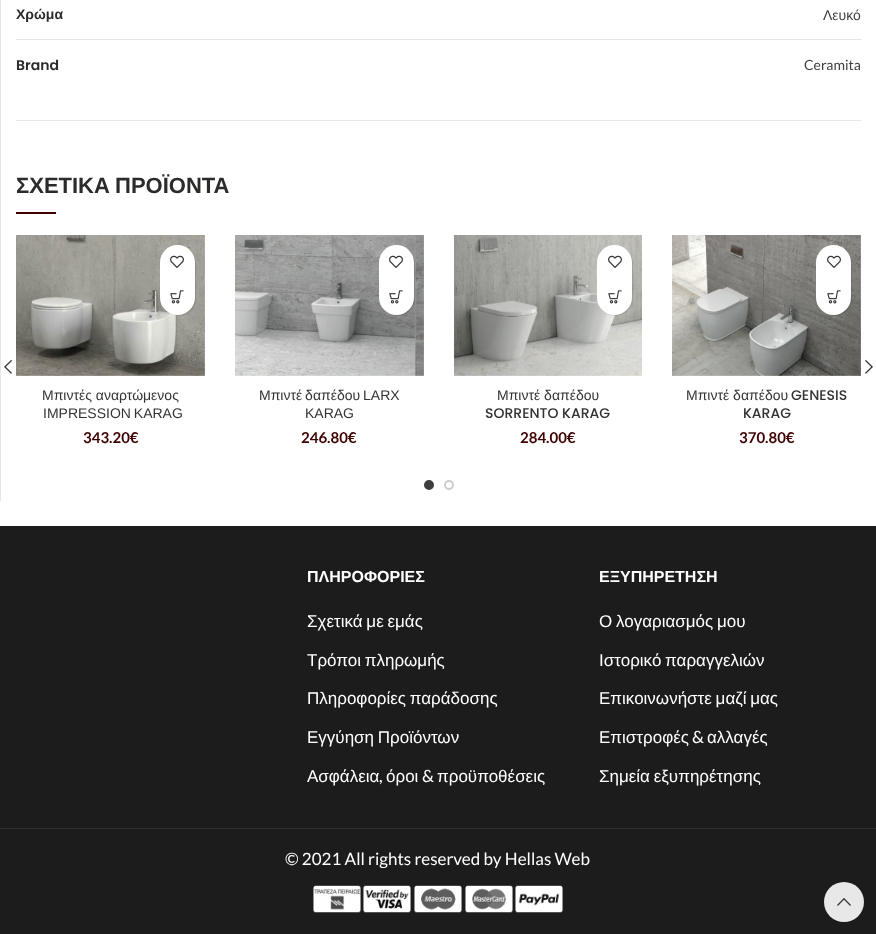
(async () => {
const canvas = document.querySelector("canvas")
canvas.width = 876
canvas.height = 934
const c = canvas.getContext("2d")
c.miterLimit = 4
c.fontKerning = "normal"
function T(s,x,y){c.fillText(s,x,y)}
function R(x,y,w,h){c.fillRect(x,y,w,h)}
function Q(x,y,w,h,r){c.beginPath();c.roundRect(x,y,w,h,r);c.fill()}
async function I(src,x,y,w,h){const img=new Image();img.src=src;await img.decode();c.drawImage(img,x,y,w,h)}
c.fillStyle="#fff"
R(0,0,876,934)
c.fillStyle="#e6e6e6"
R(0,0,1,501)
c.fillStyle="#e8e8e8"
R(16,120,845,1)
c.font="bold 14px Liberation Sans"
c.fillStyle="#2d2a2a"
T("Χρώμα",16,19)
c.fillStyle="#e6e6e6"
R(16,39,846,1)
c.font="14px Liberation Sans"
c.fillStyle="#3f3f3f"
T("Λευκό",823,20)
c.font="600 14px Poppins"
c.fillStyle="#2d2a2a"
T("Brand",16,70)
c.font="14px Lato"
c.fillStyle="#3f3f3f"
T("Ceramita",804,70)
c.wordSpacing="-1px"
c.font="bold 22px Liberation Sans"
c.fillStyle="#2d2a2a"
T("ΣΧΕΤΙΚΑ ΠΡΟΪΟΝΤΑ",16,193)
c.fillStyle="#3f0000"
R(16,212,40,2)
await I("1.png",4,360,8,14)
await I("2.png",865,360,8,14)
await I("3.png",16,235,189,141)
c.fillStyle="#0000001a"
c.filter="blur(0.5px)"
c.beginPath()
c.roundRect(161,246,35,70,17.5)
c.fill()
c.filter="none"
c.fillStyle="#fff"
Q(160,245,35,70,17.5)
await I("4.png",170,255,14,13)
await I("5.png",170,290,14,14)
c.wordSpacing="0px"
c.font="14px Liberation Sans"
c.fillStyle="#333"
T("Μπιντές αναρτώμενος",42,400)
c.wordSpacing="-1px"
T("IMPRESSION KARAG",43,418)
c.wordSpacing="0px"
c.font="bold 15px Lato"
c.fillStyle="#3f0000"
T("343.20€",83,443)
await I("6.png",235,235,189,141)
c.fillStyle="#0000001a"
c.filter="blur(0.5px)"
c.beginPath()
c.roundRect(380,246,35,70,17.5)
c.fill()
c.filter="none"
c.fillStyle="#fff"
Q(379,245,35,70,17.5)
await I("4.png",389,255,14,13)
await I("5.png",389,290,14,14)
c.wordSpacing="-1px"
c.font="14px Liberation Sans"
c.fillStyle="#333"
T("Μπιντέ δαπέδου LARX",259,400)
c.wordSpacing="0px"
T("KARAG",305,418)
c.font="bold 15px Lato"
c.fillStyle="#3f0000"
T("246.80€",301,443)
await I("7.png",454,235,188,141)
c.fillStyle="#0000001a"
c.filter="blur(0.5px)"
c.beginPath()
c.roundRect(598,246,35,70,17.5)
c.fill()
c.filter="none"
c.fillStyle="#fff"
Q(597,245,35,70,17.5)
await I("4.png",608,255,14,13)
await I("5.png",608,290,14,14)
c.font="14px Liberation Sans"
c.fillStyle="#333"
T("Μπιντέ δαπέδου",497,400)
c.font="500 14px Poppins"
T("SORRENTO KARAG",485,418)
c.font="bold 15px Lato"
c.fillStyle="#3f0000"
T("284.00€",520,443)
await I("8.png",672,235,189,141)
c.fillStyle="#0000001a"
c.filter="blur(0.5px)"
c.beginPath()
c.roundRect(817,246,35,70,17.5)
c.fill()
c.filter="none"
c.fillStyle="#fff"
Q(816,245,35,70,17.5)
await I("4.png",827,255,14,13)
await I("5.png",827,290,14,14)
c.font="14px Liberation Sans"
c.fillStyle="#333"
T("Μπιντέ δαπέδου",686,400)
c.font="500 14px Poppins"
T("GENESIS",791,400)
T("KARAG",743,418)
c.font="bold 15px Lato"
c.fillStyle="#3f0000"
T("370.80€",739,443)
c.fillStyle="#3e3e3e"
c.beginPath()
c.arc(429,485,4,0,7)
c.fill()
c.strokeStyle="#3e3e3e"
c.lineWidth=2
c.stroke()
c.beginPath()
c.arc(449,485,4,0,7)
c.strokeStyle="#ccc"
c.stroke()
c.fillStyle="#1c1c1c"
R(0,526,876,408)
c.font="bold 16px Liberation Sans"
c.fillStyle="#fff"
T("ΠΛΗΡΟΦΟΡΙΕΣ",307,582)
c.wordSpacing="-1px"
c.font="17px Liberation Sans"
T("Σχετικά με εμάς",307,627)
T("Τρόποι πληρωμής",307,666)
T("Πληροφορίες παράδοσης",307,704)
T("Εγγύηση Προϊόντων",307,743)
c.wordSpacing="0px"
T("Ασφάλεια",307,782)
c.font="17px Lato"
T(",",379,782)
c.font="17px Liberation Sans"
T("όροι",386,782)
c.font="17px Lato"
T("&",422,782)
c.font="17px Liberation Sans"
T("προϋποθέσεις",437,782)
c.font="bold 16px Liberation Sans"
T("ΕΞΥΠΗΡΕΤΗΣΗ",599,582)
c.wordSpacing="-1px"
c.font="17px Liberation Sans"
T("Ο λογαριασμός μου",599,627)
T("Ιστορικό παραγγελιών",599,666)
T("Επικοινωνήστε μαζί μας",599,704)
c.wordSpacing="0px"
T("Επιστροφές",599,743)
c.font="17px Lato"
T("&",692,743)
c.font="17px Liberation Sans"
T("αλλαγές",707,743)
c.wordSpacing="-1px"
T("Σημεία εξυπηρέτησης",599,782)
c.fillStyle="#303030"
R(0,828,876,1)
c.wordSpacing="0px"
c.font="17px Lato"
c.fillStyle="#fff"
T("© 2021 All rights reserved by Hellas Web",285,865)
await I("9.png",313,885,48,28)
await I("10.png",363,885,48,28)
await I("11.png",414,885,48,28)
await I("12.png",465,885,48,28)
await I("13.png",515,885,48,28)
c.fillStyle="#e8e8e8"
c.beginPath()
c.arc(844,902,20,0,7)
c.fill()
await I("14.png",837,898,14,8)
})()
